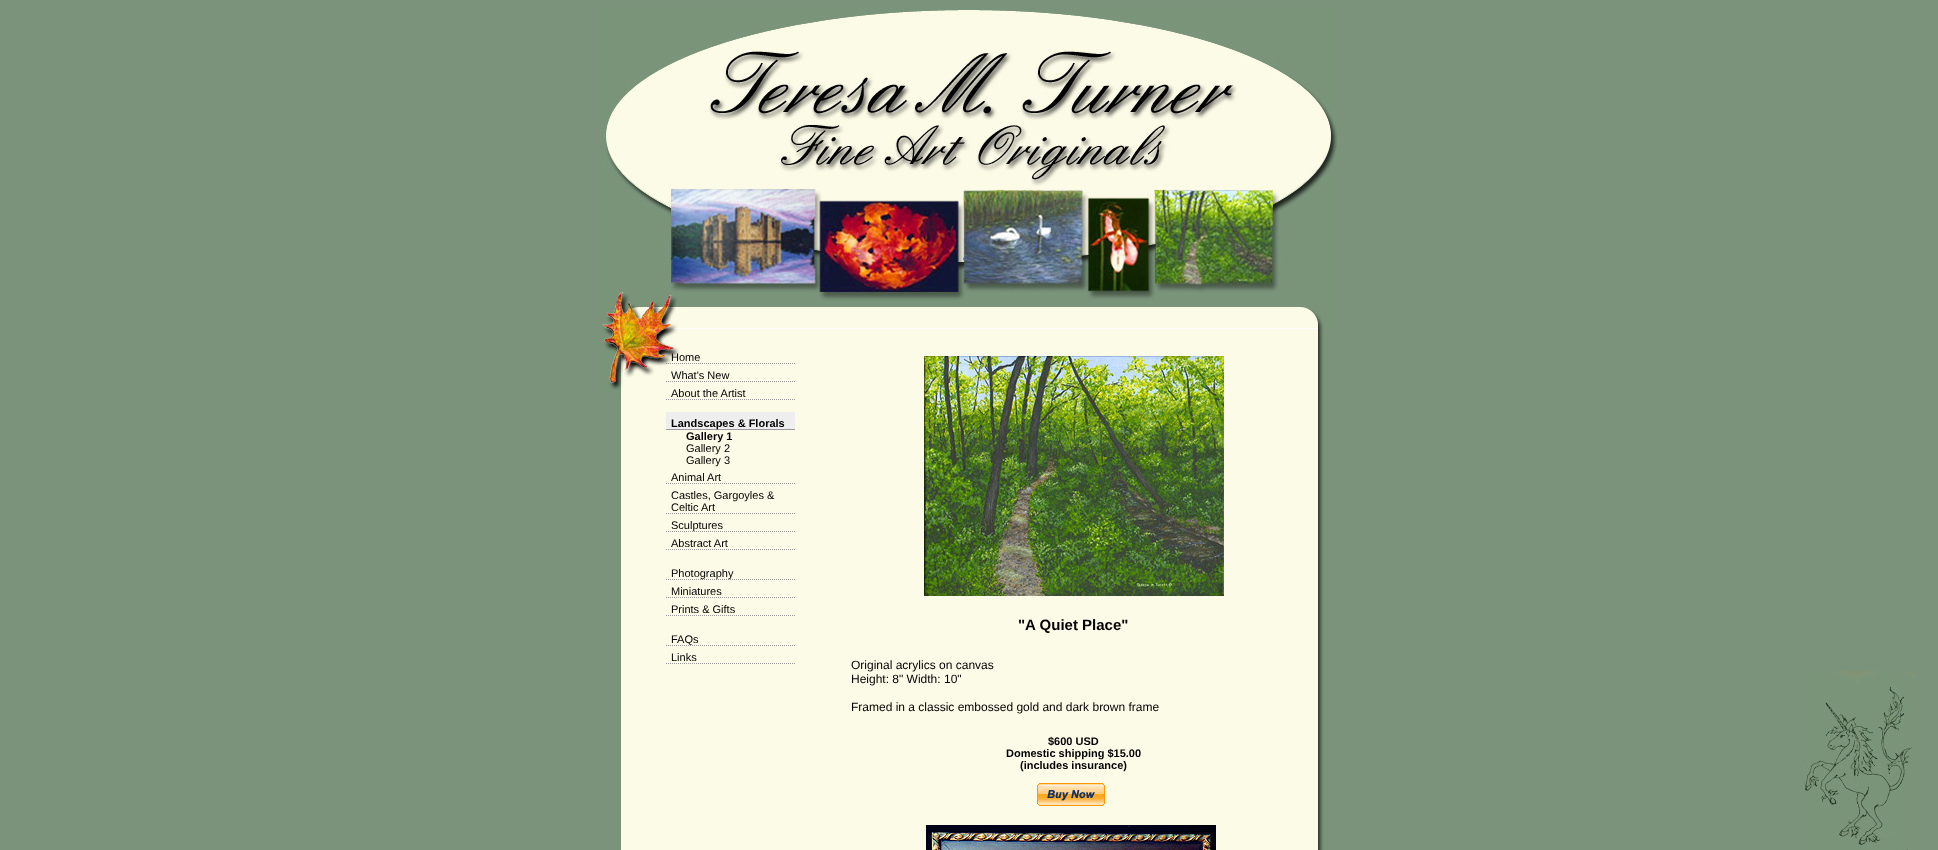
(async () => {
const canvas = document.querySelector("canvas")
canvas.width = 1938
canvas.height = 850
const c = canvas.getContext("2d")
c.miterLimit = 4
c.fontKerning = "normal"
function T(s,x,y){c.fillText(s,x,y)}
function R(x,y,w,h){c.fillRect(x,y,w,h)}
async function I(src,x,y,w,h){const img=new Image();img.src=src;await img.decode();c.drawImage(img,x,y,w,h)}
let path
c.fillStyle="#7a937a"
R(0,0,1938,850)
await I("1.png",1804,671,112,179)
await I("2.png",602,8,736,321)
await I("3.png",621,329,703,521)
await I("4.png",602,329,78,64)
path = new Path2D("M666 363.5h129")
c.strokeStyle="#999"
c.setLineDash([1,1])
c.stroke(path)
c.font="11px Liberation Sans"
c.fillStyle="#000"
T("Home",671,361)
path = new Path2D("M666 381.5h129")
c.stroke(path)
T("What's New",671,379)
path = new Path2D("M666 399.5h129")
c.stroke(path)
T("About the Artist",671,397)
c.fillStyle="#eee"
R(666,412,129,17)
c.fillStyle="#999"
R(666,429,129,1)
c.font="bold 11px Liberation Sans"
c.fillStyle="#000"
T("Landscapes & Florals",671,427)
T("Gallery 1",686,440)
c.font="11px Liberation Sans"
T("Gallery 2",686,452)
T("Gallery 3",686,464)
path = new Path2D("M666 483.5h129")
c.stroke(path)
T("Animal Art",671,481)
path = new Path2D("M666 513.5h129")
c.stroke(path)
T("Castles, Gargoyles &",671,499)
T("Celtic Art",671,511)
path = new Path2D("M666 531.5h129")
c.stroke(path)
T("Sculptures",671,529)
path = new Path2D("M666 549.5h129")
c.stroke(path)
T("Abstract Art",671,547)
path = new Path2D("M666 579.5h129")
c.stroke(path)
T("Photography",671,577)
path = new Path2D("M666 597.5h129")
c.stroke(path)
T("Miniatures",671,595)
path = new Path2D("M666 615.5h129")
c.stroke(path)
T("Prints & Gifts",671,613)
path = new Path2D("M666 645.5h129")
c.stroke(path)
T("FAQs",671,643)
path = new Path2D("M666 663.5h129")
c.stroke(path)
T("Links",671,661)
await I("5.png",924,356,300,240)
c.font="bold 15px Liberation Sans"
T("\"A Quiet Place\"",1018,630)
c.font="12px Liberation Sans"
T("Original acrylics on canvas",851,669)
T("Height: 8\" Width: 10\"",851,683)
T("Framed in a classic embossed gold and dark brown frame",851,711)
c.font="bold 11px Liberation Sans"
T("$600 USD",1048,745)
T("Domestic shipping $15.00",1006,757)
T("(includes insurance)",1020,769)
await I("6.png",1037,783,68,23)
await I("7.png",926,825,290,25)
})()
